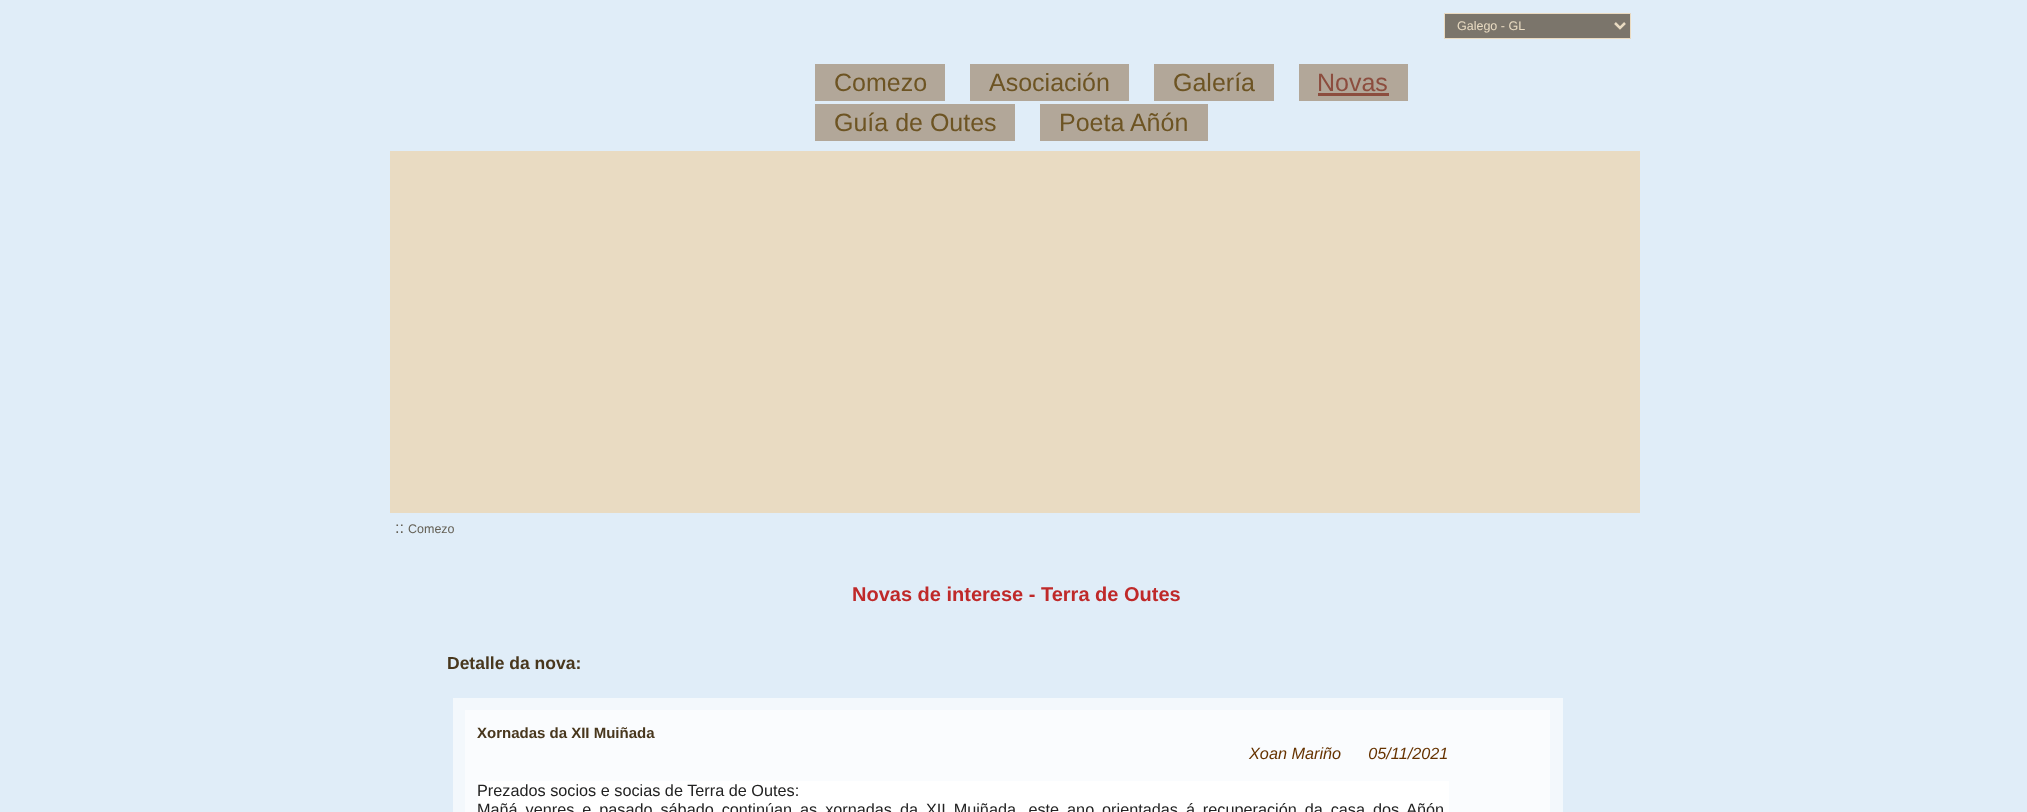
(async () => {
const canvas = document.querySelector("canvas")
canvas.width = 2027
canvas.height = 812
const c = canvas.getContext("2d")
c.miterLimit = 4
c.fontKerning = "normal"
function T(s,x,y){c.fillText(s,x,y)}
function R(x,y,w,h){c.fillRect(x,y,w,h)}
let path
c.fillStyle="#e0edf8"
R(0,0,2027,812)
c.fillStyle="#7b756b"
c.beginPath()
c.rect(1444.5,13.5,186,25)
c.fill()
c.strokeStyle="#ebdbc1"
c.stroke()
path = new Path2D("M1615 23l5 5l5-5")
c.strokeStyle="#e9dbc2"
c.lineWidth=2.5
c.stroke(path)
c.font="12.5px Liberation Sans"
c.fillStyle="#e9dbc2"
T("Galego - GL",1457,30)
c.fillStyle="#b2a799"
R(815,64,130,37)
c.font="25px Liberation Sans"
c.fillStyle="#6d5423"
T("Comezo",834,91)
c.fillStyle="#b2a799"
R(970,64,159,37)
c.fillStyle="#6d5423"
T("Asociación",989,91)
c.fillStyle="#b2a799"
R(1154,64,120,37)
c.fillStyle="#6d5423"
T("Galería",1173,91)
c.fillStyle="#b2a799"
R(1299,64,109,37)
c.fillStyle="#8c4d3e"
T("Novas",1317,91)
R(1318,93,71,3)
c.fillStyle="#b2a799"
R(815,104,200,37)
c.fillStyle="#6d5423"
T("Guía de Outes",834,131)
c.fillStyle="#b2a799"
R(1040,104,168,37)
c.fillStyle="#6d5423"
T("Poeta Añón",1059,131)
c.fillStyle="#e9dbc2"
R(390,151,1250,362)
c.font="16.25px Liberation Sans"
c.fillStyle="#646055"
T("::",395,533)
c.font="12.5px Liberation Sans"
T("Comezo",408,533)
c.font="bold 20px Liberation Sans"
c.fillStyle="#bf2929"
T("Novas de interese - Terra de Outes",852,601)
c.font="bold 17.5px Liberation Sans"
c.fillStyle="#48371d"
T("Detalle da nova:",447,669)
c.fillStyle="#f3f8fc"
R(453,698,1110,114)
c.fillStyle="#fafcfe"
R(465,710,1085,102)
c.font="bold 15px Liberation Sans"
c.fillStyle="#48371d"
T("Xornadas da XII Muiñada",477,738)
c.font="italic 16.25px Liberation Sans"
c.fillStyle="#630"
T("Xoan Mariño      05/11/2021",1249,759)
c.fillStyle="#fff"
R(478,781,971,31)
c.font="16.25px Liberation Sans"
c.fillStyle="#222"
T("Prezados socios e socias de Terra de Outes:",477,796)
c.wordSpacing="3.4px"
T("Mañá venres e pasado sábado continúan as xornadas da XII Muiñada, este ano orientadas á recuperación da casa dos Añón",477,815)
})()
